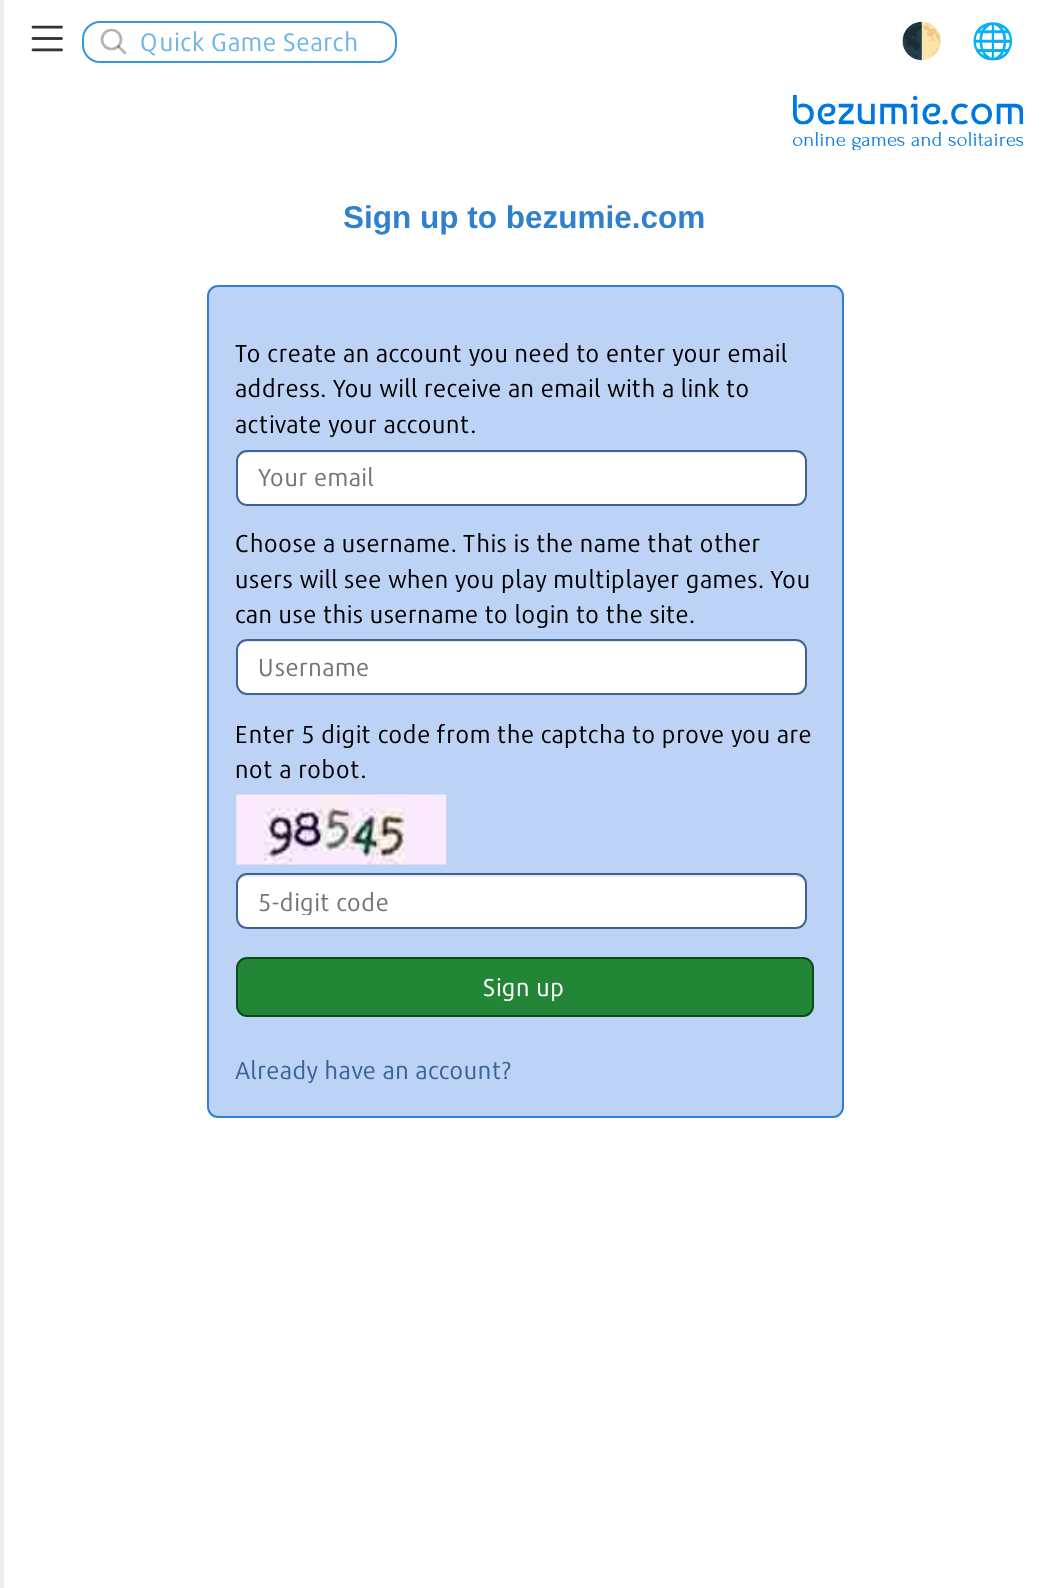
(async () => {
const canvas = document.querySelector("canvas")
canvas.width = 1048
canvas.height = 1588
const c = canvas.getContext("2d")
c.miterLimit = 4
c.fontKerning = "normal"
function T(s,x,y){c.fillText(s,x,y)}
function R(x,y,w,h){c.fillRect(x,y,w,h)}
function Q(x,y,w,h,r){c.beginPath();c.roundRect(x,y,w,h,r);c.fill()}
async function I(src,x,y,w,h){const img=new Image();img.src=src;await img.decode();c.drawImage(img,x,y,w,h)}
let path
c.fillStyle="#fff"
R(0,0,1048,1588)
c.fillStyle="#eee"
R(0,0,4,1588)
await I("1.png",31,25,32,27)
c.beginPath()
c.arc(111.5,39.5,9.5,0,7)
c.strokeStyle="#b3b3b3"
c.lineWidth=2.6
c.stroke()
path = new Path2D("M125 53l-6.5-6.5")
c.strokeStyle="#0000004d"
c.lineCap="round"
c.lineJoin="round"
c.stroke(path)
c.beginPath()
c.roundRect(83,22,313,40,17)
c.strokeStyle="#3498db"
c.lineWidth=2
c.lineJoin="miter"
c.stroke()
c.font="25.25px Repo"
c.fillStyle="#71b7e6"
T("Quick Game Search",140,51)
c.font="35px Noto Color Emoji"
c.fillStyle="#333"
T("🌓",900,53)
T("🌐",971,53)
await I("2.png",793,95,230,55)
c.font="bold 31.5px Liberation Sans"
c.fillStyle="#3080d0"
T("Sign up to bezumie.com",343,228)
c.fillStyle="#bdd3f5"
c.beginPath()
c.roundRect(208,286,635,831,10)
c.fill()
c.strokeStyle="#3080d0"
c.stroke()
c.font="24.5px Repo"
c.fillStyle="#000"
T("To create an account you need to enter your email",235,362)
T("address. You will receive an email with a link to",235,397)
T("activate your account.",235,433)
c.fillStyle="#fff"
Q(236,450,571,56,11)
c.fillStyle="#ececec"
path = new Path2D("M247 453h549c5 0 9 4 9 9v-1c0-5-4-9-9-9h-549c-5 0-9 4-9 9v1c0-5 4-9 9-9z")
c.fill(path)
c.beginPath()
c.roundRect(237,451,569,54,10)
c.strokeStyle="#3e6297"
c.stroke()
c.fillStyle="#757575"
T("Your email",258,486)
c.fillStyle="#000"
T("Choose a username. This is the name that other",235,552)
T("users will see when you play multiplayer games. You",235,588)
T("can use this username to login to the site.",235,623)
c.fillStyle="#fff"
Q(236,639,571,56,11)
c.fillStyle="#ececec"
path = new Path2D("M247 642h549c5 0 9 4 9 9v-1c0-5-4-9-9-9h-549c-5 0-9 4-9 9v1c0-5 4-9 9-9z")
c.fill(path)
c.beginPath()
c.roundRect(237,640,569,54,10)
c.stroke()
c.fillStyle="#757575"
T("Username",258,676)
c.fillStyle="#000"
T("Enter 5 digit code from the captcha to prove you are",235,743)
T("not a robot.",235,778)
await I("3.png",236,794,211,71)
c.fillStyle="#fff"
Q(236,873,571,56,11)
c.fillStyle="#ececec"
path = new Path2D("M247 877h549c5 0 9 4 9 9v-2c0-5-4-9-9-9h-549c-5 0-9 4-9 9v2c0-5 4-9 9-9z")
c.fill(path)
c.beginPath()
c.roundRect(237,874,569,54,10)
c.stroke()
c.save()
c.beginPath()
c.rect(259,886,525,29)
c.clip()
c.fillStyle="#757575"
T("5-digit code",258,911)
c.restore()
c.fillStyle="#238636"
c.beginPath()
c.roundRect(237,958,576,58,10)
c.fill()
c.strokeStyle="#0b4c18"
c.stroke()
c.fillStyle="#fff"
T("Sign up",483,996)
c.fillStyle="#3e6297"
T("Already have an account?",235,1079)
})()
